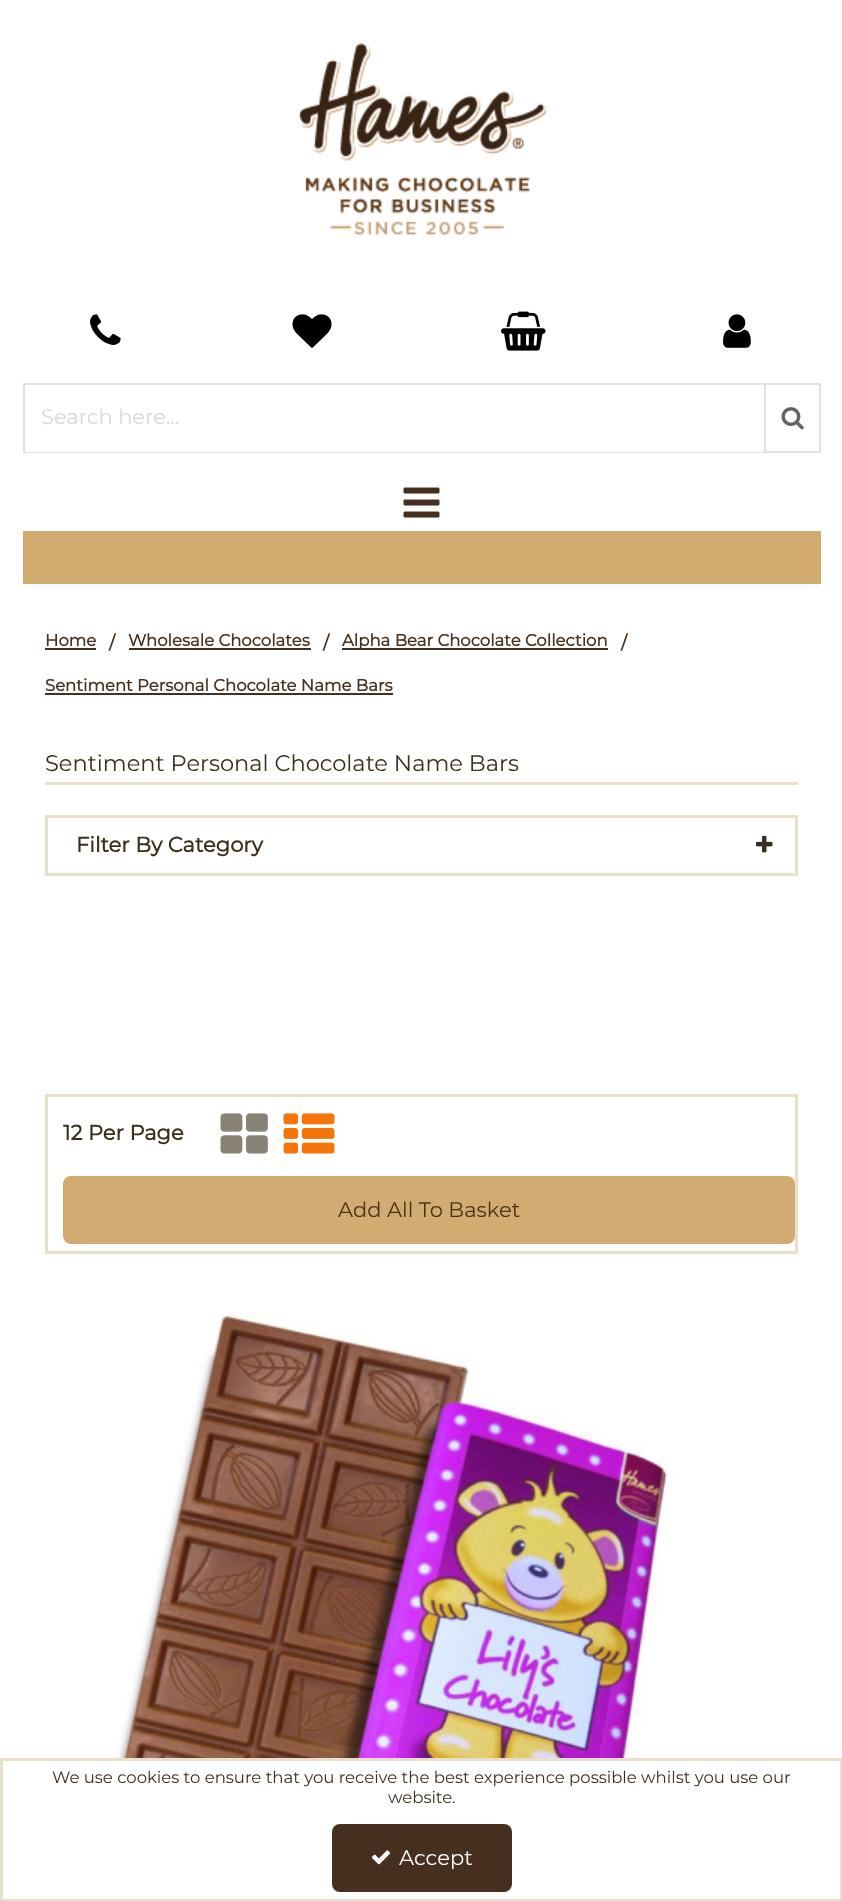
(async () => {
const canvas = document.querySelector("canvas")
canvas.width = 842
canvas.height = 1901
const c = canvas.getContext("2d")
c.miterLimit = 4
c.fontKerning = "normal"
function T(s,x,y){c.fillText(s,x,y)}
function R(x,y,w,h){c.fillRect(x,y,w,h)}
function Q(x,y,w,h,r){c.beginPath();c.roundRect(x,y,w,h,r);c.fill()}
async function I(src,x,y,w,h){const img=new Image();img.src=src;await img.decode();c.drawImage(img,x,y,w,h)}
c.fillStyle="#fff"
R(0,0,842,1901)
await I("1.png",299,43,247,193)
await I("2.png",90,314,31,31)
await I("3.png",292,314,40,34)
await I("4.png",501,311,45,40)
await I("5.png",723,314,28,34)
c.fillStyle="#e1e1e1"
R(23,383,741,2)
R(23,452,741,1)
R(23,383,2,70)
c.font="100 21px Montserrat"
c.fillStyle="#d8d8d8"
T("Search here...",41,424)
c.strokeStyle="#e1e1e1"
c.lineWidth=2
c.strokeRect(765,384,55,68)
await I("6.png",781,407,23,23)
await I("7.png",403,487,37,31)
c.fillStyle="#d2ab71"
R(23,531,798,53)
c.font="bold 16.5px Montserrat"
c.fillStyle="#472f1f"
T("Home",45,646)
R(45,648,51,2)
c.font="bold 18px Montserrat"
T("/",109,649)
c.font="bold 16.5px Montserrat"
T("Wholesale Chocolates",128,646)
R(129,648,182,2)
c.font="bold 18px Montserrat"
T("/",323,649)
R(342,648,266,2)
c.font="bold 16.5px Montserrat"
T("Alpha Bear Chocolate Collection",342,646)
c.font="bold 18px Montserrat"
T("/",621,649)
c.font="bold 16.5px Montserrat"
T("Sentiment Personal Chocolate Name Bars",45,691)
R(45,693,348,2)
c.fillStyle="#e8e0cb"
R(45,782,753,3)
c.font="100 22.5px Montserrat"
c.fillStyle="#3a2f1d"
T("Sentiment Personal Chocolate Name Bars",45,771)
c.strokeStyle="#e8e0cb"
c.lineWidth=3
c.strokeRect(46.5,816.5,750,58)
c.font="bold 21px Montserrat"
T("Filter By Category",76,852)
await I("8.png",756,835,17,18)
c.strokeRect(46.5,1095.5,750,157)
T("12 Per Page",63,1140)
await I("9.png",220,1113,48,41)
await I("10.png",283,1113,52,41)
c.fillStyle="#d2ab72"
Q(63,1176,732,68,8)
c.font="100 21px Montserrat"
c.fillStyle="#453516"
T("Add All To Basket",338,1217)
await I("11.png",97,1312,576,446)
c.strokeRect(1.5,1759.5,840,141)
c.font="100 16.5px Montserrat"
c.fillStyle="#3a2f1d"
T("We use cookies to ensure that you receive the best experience possible whilst you use our",52,1783)
T("website.",388,1803)
c.fillStyle="#472f1f"
Q(332,1824,180,68,8)
await I("12.png",371,1850,20,15)
c.font="100 21px Montserrat"
c.fillStyle="#fff"
T("Accept",399,1865)
})()
